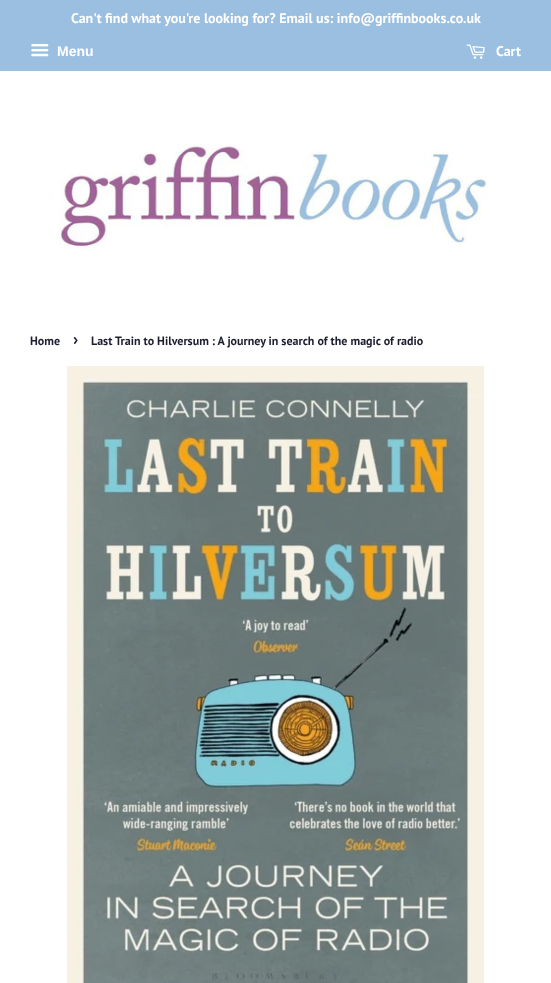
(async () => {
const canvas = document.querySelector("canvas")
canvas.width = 551
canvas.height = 983
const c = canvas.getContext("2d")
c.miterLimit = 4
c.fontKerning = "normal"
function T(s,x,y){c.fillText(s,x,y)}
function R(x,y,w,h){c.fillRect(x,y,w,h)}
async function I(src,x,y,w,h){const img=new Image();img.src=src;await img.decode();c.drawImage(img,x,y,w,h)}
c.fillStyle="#fff"
R(0,0,551,983)
c.fillStyle="#9bbfe1"
R(0,0,551,71)
c.font="bold 14px PT Sans"
c.fillStyle="#fff"
T("Can't find what you're looking for? Email us: info@griffinbooks.co.uk",71,23)
await I("1.png",31,44,18,13)
c.font="bold 14px Liberation Sans"
T("Menu",57,56)
await I("2.png",466,44,19,15)
c.font="bold 14px PT Sans"
T("Cart",496,56)
await I("3.png",59,145,429,105)
c.font="bold 12px PT Sans"
c.fillStyle="#1b1e2f"
T("Home",30,345)
c.font="bold 17px PT Sans"
T("›",73,345)
c.font="bold 12px PT Sans"
T("Last Train to Hilversum : A journey in search of the magic of radio",91,345)
await I("4.png",67,366,417,617)
})()
